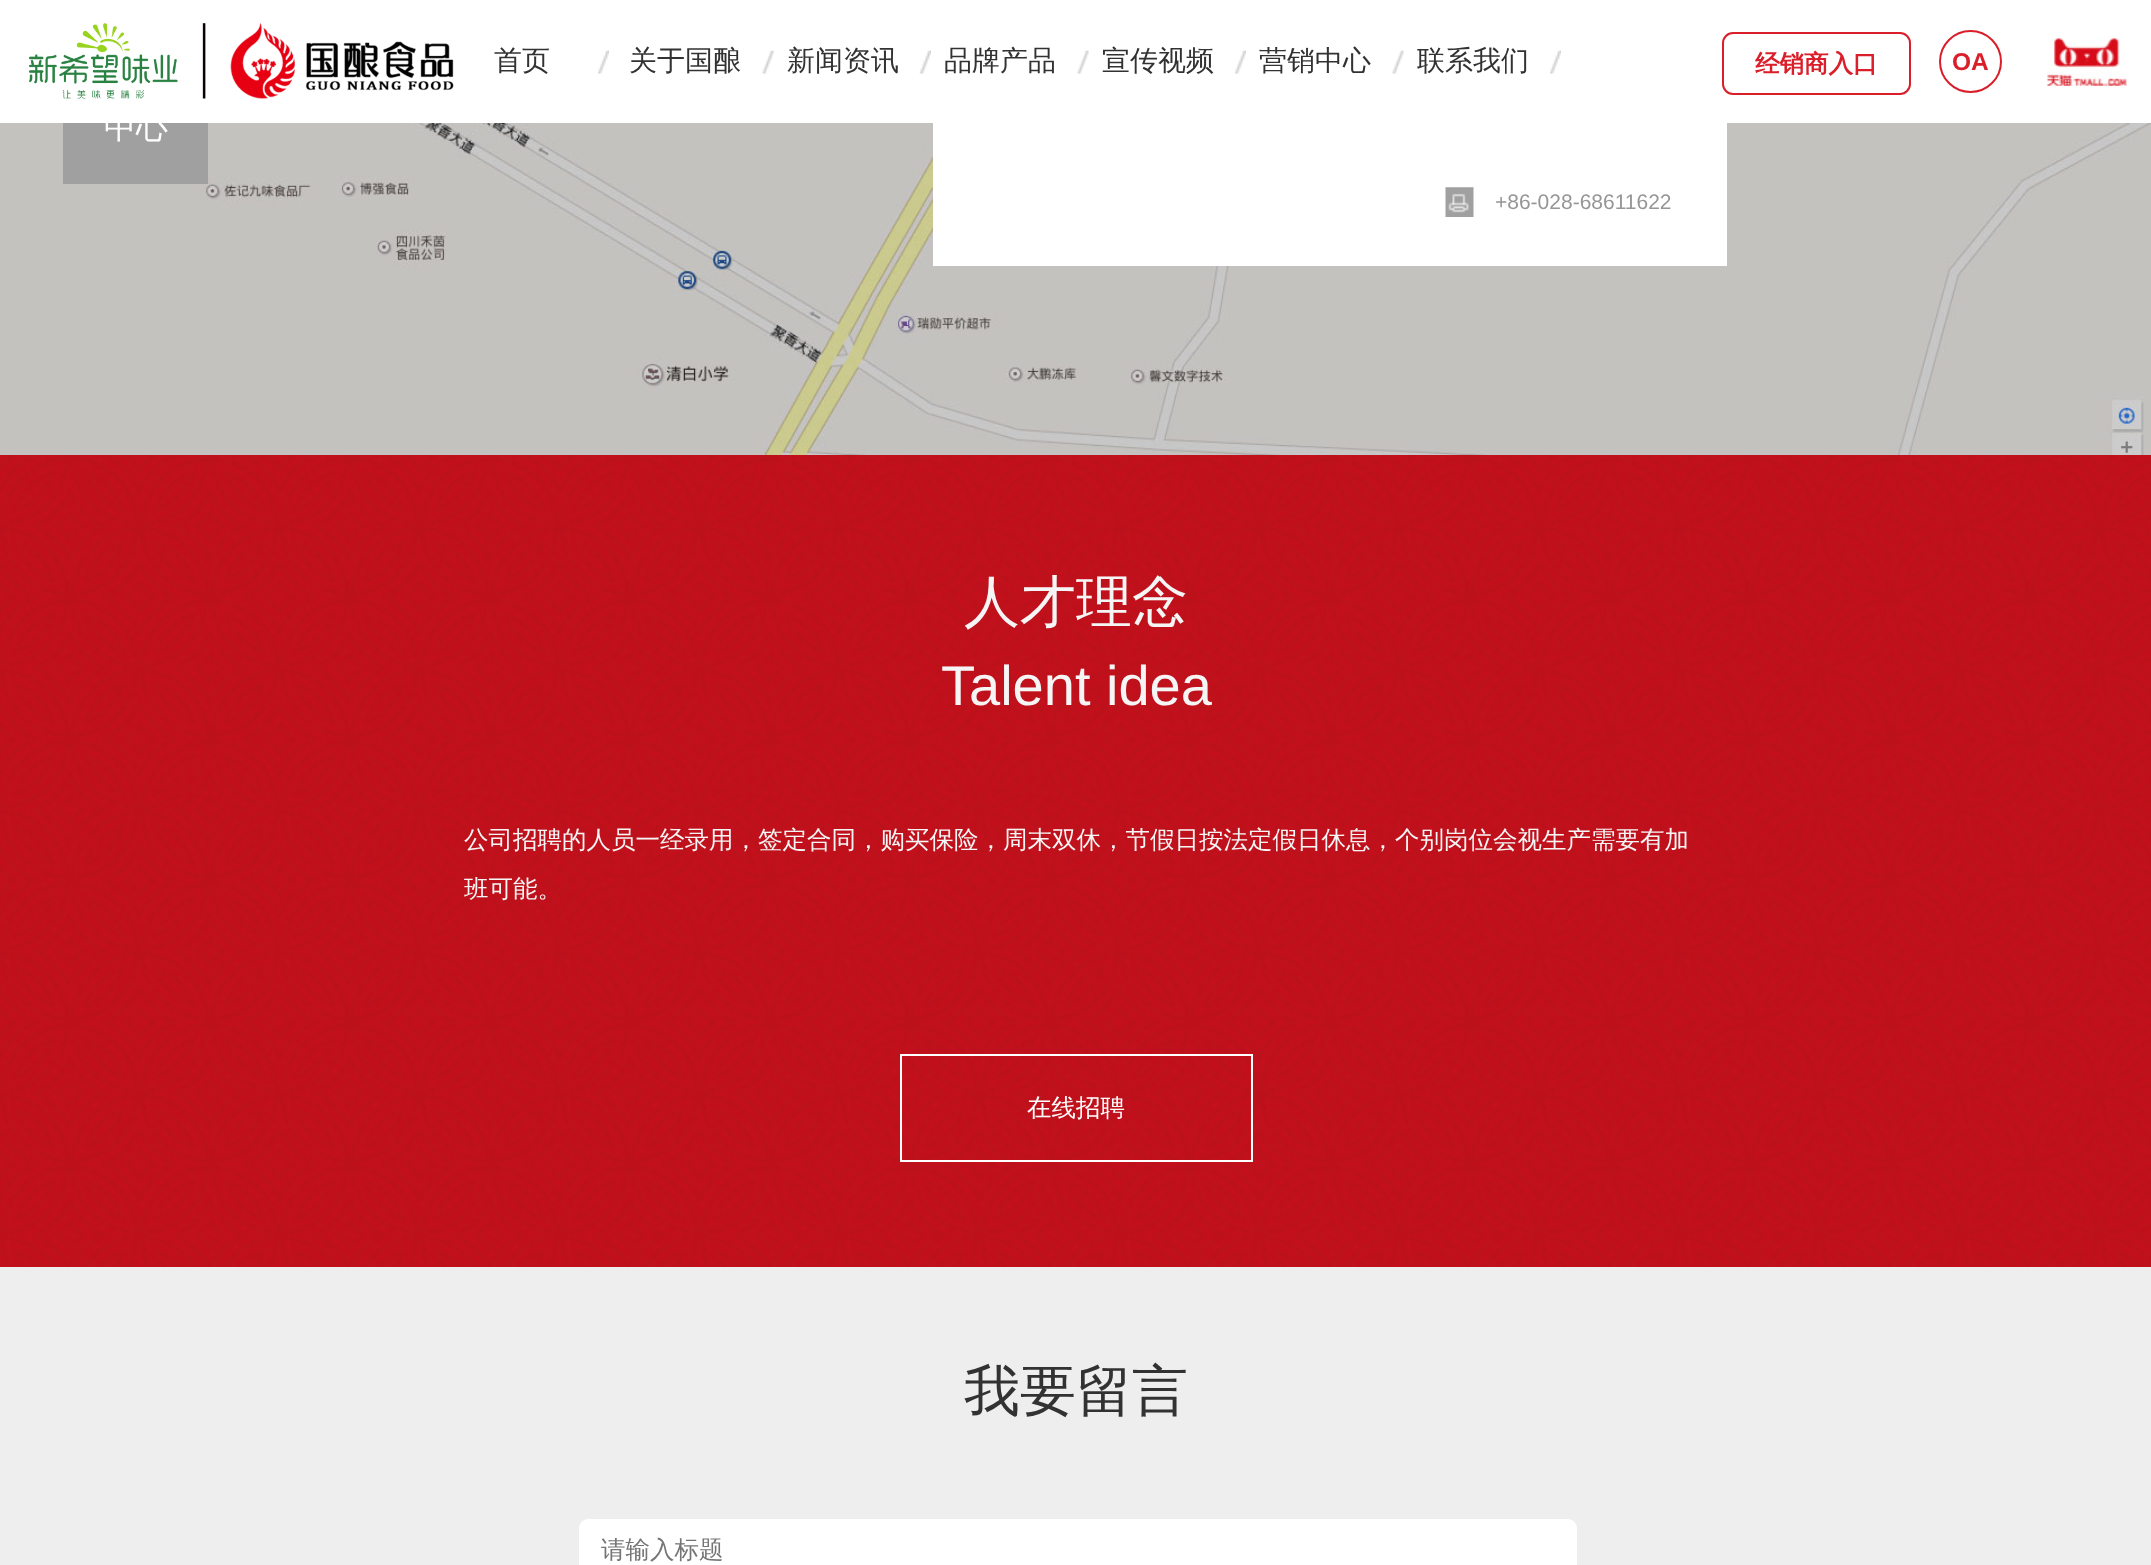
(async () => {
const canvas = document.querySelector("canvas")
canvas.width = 2151
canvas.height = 1565
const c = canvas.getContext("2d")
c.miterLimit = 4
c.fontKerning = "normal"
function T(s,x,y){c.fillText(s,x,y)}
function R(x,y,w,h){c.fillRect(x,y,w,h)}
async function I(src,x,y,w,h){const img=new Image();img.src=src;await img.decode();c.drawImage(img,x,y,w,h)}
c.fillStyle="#fff"
R(0,0,2151,1565)
await I("1.png",29,23,425,76)
await I("2.png",597,50,12,24)
c.font="500 28px WenQuanYi Zen Hei"
c.fillStyle="#323232"
T("首页",494,70)
await I("3.png",761,50,13,24)
T("关于国酿",629,70)
await I("4.png",919,50,12,24)
T("新闻资讯",787,70)
await I("3.png",1076,50,13,24)
T("品牌产品",944,70)
await I("2.png",1234,50,12,24)
T("宣传视频",1102,70)
await I("5.png",1391,50,13,24)
T("营销中心",1259,70)
await I("6.png",1549,50,12,24)
T("联系我们",1417,70)
c.beginPath()
c.roundRect(1723,33,187,61,10)
c.strokeStyle="#da1e2a"
c.lineWidth=2
c.stroke()
c.font="bold 24.5px WenQuanYi Zen Hei"
c.fillStyle="#da1e2a"
T("经销商入口",1755,72)
c.beginPath()
c.arc(1970.5,61.5,30.5,0,7)
c.stroke()
c.font="bold 24.5px Liberation Sans"
T("OA",1952,70)
await I("7.png",2047,38,80,48)
await I("8.png",0,123,2151,332)
c.fillStyle="#a0a0a0"
R(63,123,145,61)
c.font="500 32px WenQuanYi Zen Hei"
c.fillStyle="#fff"
T("中心",104,138)
R(933,123,794,143)
await I("9.png",1445,187,29,30)
c.font="21px Liberation Sans"
c.fillStyle="#969696"
T("+86-028-68611622",1495,209)
await I("10.png",0,455,2151,812)
c.font="500 56px WenQuanYi Zen Hei"
c.fillStyle="#f5f5f5"
T("人才理念",964,621)
c.font="56px Liberation Sans"
T("Talent idea",941,705)
c.font="500 24.5px WenQuanYi Zen Hei"
T("公司招聘的人员一经录用，签定合同，购买保险，周末双休，节假日按法定假日休息，个别岗位会视生产需要有加",464,848)
T("班可能。",464,897)
c.strokeStyle="#fff"
c.strokeRect(901,1055,351,106)
c.fillStyle="#fff"
T("在线招聘",1027,1116)
c.fillStyle="#eee"
R(0,1267,2151,298)
c.font="500 56px WenQuanYi Zen Hei"
c.fillStyle="#323232"
T("我要留言",964,1410)
c.fillStyle="#fff"
c.beginPath()
c.roundRect(580,1520,996,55,8)
c.fill()
c.stroke()
c.font="500 24.5px WenQuanYi Zen Hei"
c.fillStyle="#757575"
T("请输入标题",601,1558)
})()
